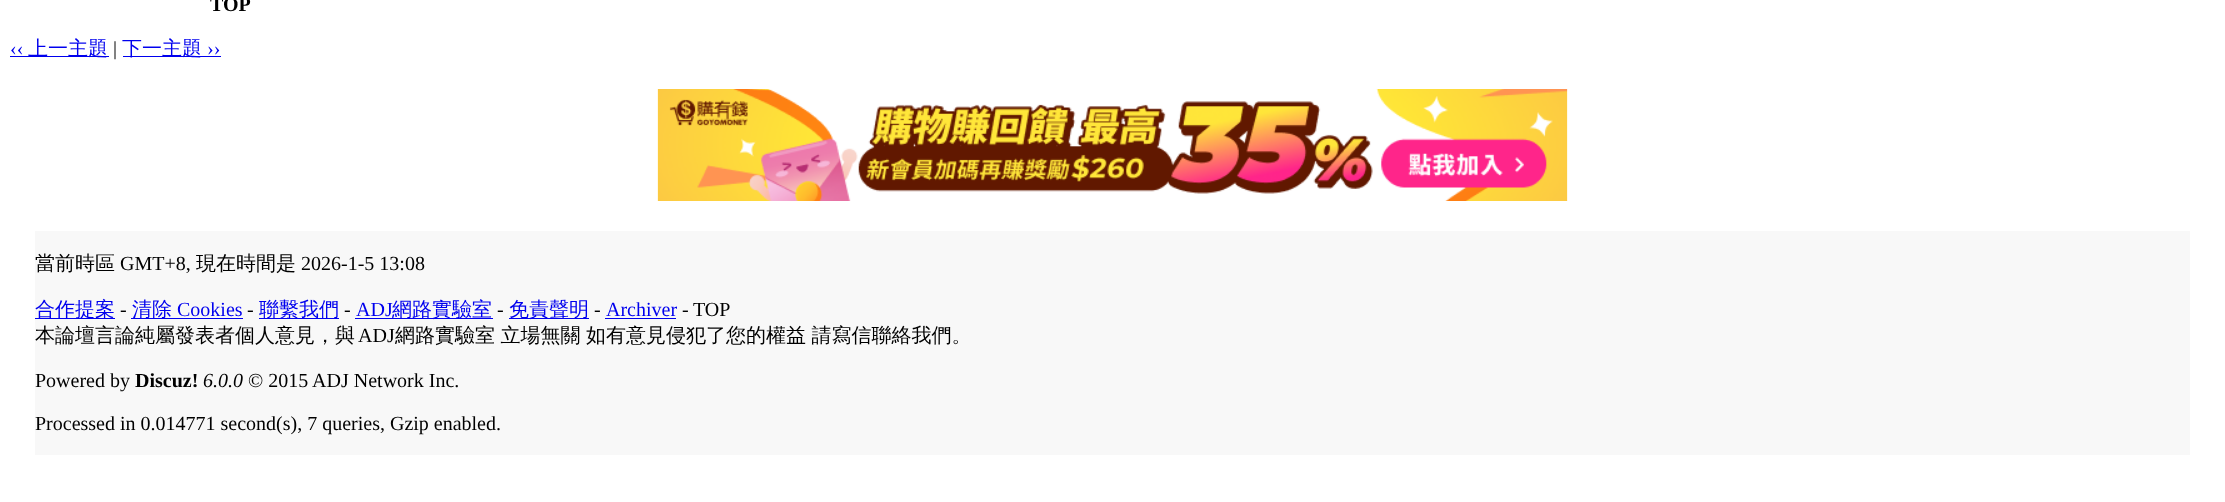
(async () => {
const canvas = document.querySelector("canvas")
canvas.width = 2225
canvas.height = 502
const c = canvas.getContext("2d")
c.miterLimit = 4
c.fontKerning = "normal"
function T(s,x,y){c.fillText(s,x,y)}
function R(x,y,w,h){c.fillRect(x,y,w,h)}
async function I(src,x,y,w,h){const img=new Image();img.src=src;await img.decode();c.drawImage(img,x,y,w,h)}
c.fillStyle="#fff"
R(0,0,2225,502)
c.font="bold 20px Liberation Serif"
c.fillStyle="#000"
T("TOP",210,11)
c.font="20px Liberation Serif"
c.fillStyle="#00e"
T("‹‹",10,55)
R(10,56,99,1)
c.font="500 20px WenQuanYi Zen Hei"
T("上一主題",28,55)
c.font="20px Liberation Serif"
c.fillStyle="#000"
T("|",113,55)
c.fillStyle="#00e"
R(123,56,98,1)
c.font="500 20px WenQuanYi Zen Hei"
T("下一主題",122,55)
c.font="20px Liberation Serif"
T("››",207,55)
await I("1.png",657,89,911,112)
c.fillStyle="#f8f8f8"
R(35,231,2155,224)
c.font="500 20px WenQuanYi Zen Hei"
c.fillStyle="#000"
T("當前時區",35,270)
c.font="20px Liberation Serif"
T("GMT+8,",120,270)
c.font="500 20px WenQuanYi Zen Hei"
T("現在時間是",196,270)
c.font="20px Liberation Serif"
T("2026-1-5 13:08",301,270)
c.fillStyle="#00e"
R(35,318,80,1)
c.font="500 20px WenQuanYi Zen Hei"
T("合作提案",35,316)
c.font="20px Liberation Serif"
c.fillStyle="#000"
T("-",120,316)
c.fillStyle="#00e"
R(131,318,112,1)
c.font="500 20px WenQuanYi Zen Hei"
T("清除",132,316)
c.font="20px Liberation Serif"
T("Cookies",177,316)
c.fillStyle="#000"
T("-",247,316)
c.fillStyle="#00e"
R(259,318,80,1)
c.font="500 20px WenQuanYi Zen Hei"
T("聯繫我們",259,316)
c.font="20px Liberation Serif"
c.fillStyle="#000"
T("-",344,316)
c.fillStyle="#00e"
T("ADJ",356,316)
R(355,318,138,1)
c.font="500 20px WenQuanYi Zen Hei"
T("網路實驗室",392,316)
c.font="20px Liberation Serif"
c.fillStyle="#000"
T("-",497,316)
c.fillStyle="#00e"
R(509,318,80,1)
c.font="500 20px WenQuanYi Zen Hei"
T("免責聲明",509,316)
c.font="20px Liberation Serif"
c.fillStyle="#000"
T("-",594,316)
c.fillStyle="#00e"
T("Archiver",606,316)
R(605,318,71,1)
c.fillStyle="#000"
T("-",682,316)
T("TOP",693,316)
c.font="500 20px WenQuanYi Zen Hei"
T("本論壇言論純屬發表者個人意見，與",35,342)
c.font="20px Liberation Serif"
T("ADJ",358,342)
c.wordSpacing="-0.5px"
c.font="500 20px WenQuanYi Zen Hei"
T("網路實驗室 立場無關 如有意見侵犯了您的權益 請寫信聯絡我們。",395,342)
c.wordSpacing="0px"
c.font="20px Liberation Serif"
T("Powered by",35,387)
c.font="bold 20px Liberation Serif"
T("Discuz!",135,387)
c.font="italic 20px Liberation Serif"
T("6.0.0",203,387)
c.font="20px Liberation Serif"
T("© 2015 ADJ Network Inc.",248,387)
T("Processed in 0.014771 second(s), 7 queries, Gzip enabled.",35,430)
})()
